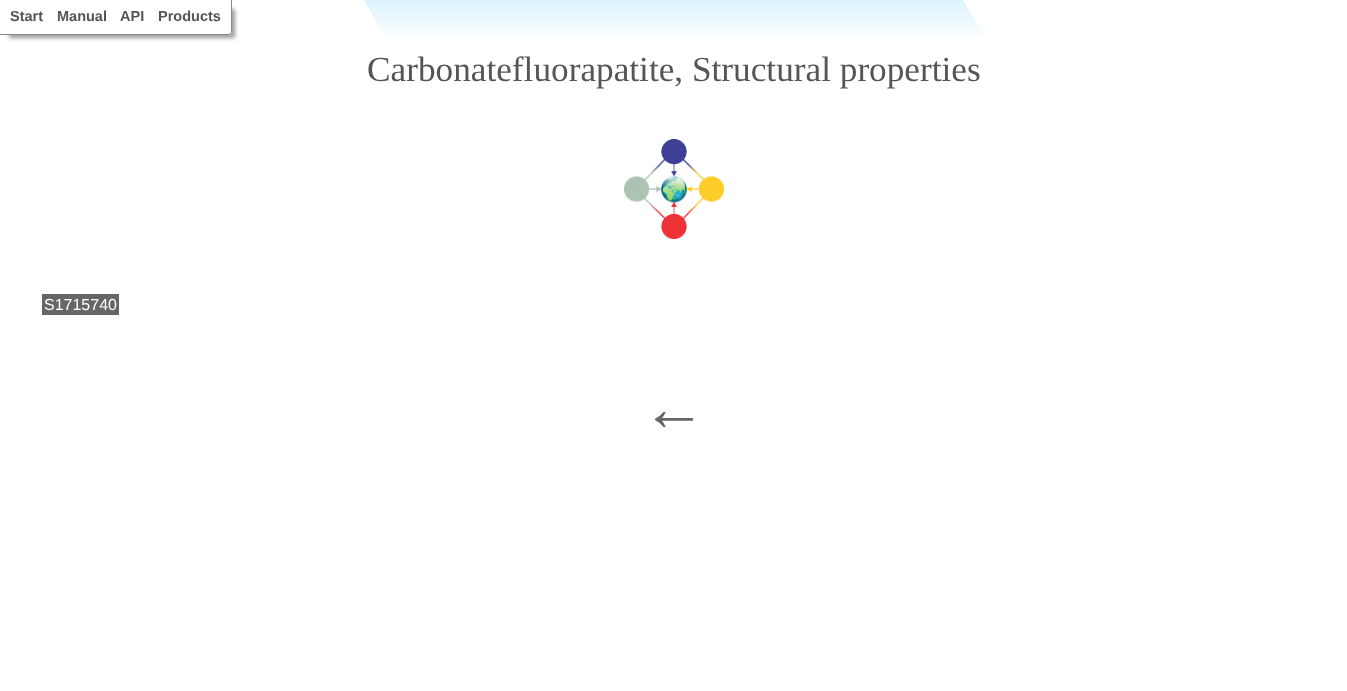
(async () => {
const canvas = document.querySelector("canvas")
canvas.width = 1347
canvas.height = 691
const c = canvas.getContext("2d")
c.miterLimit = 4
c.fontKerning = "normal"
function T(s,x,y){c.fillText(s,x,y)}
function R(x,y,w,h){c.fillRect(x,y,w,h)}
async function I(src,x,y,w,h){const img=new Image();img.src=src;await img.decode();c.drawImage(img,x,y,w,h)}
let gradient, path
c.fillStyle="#fff"
R(0,0,1347,691)
gradient = c.createLinearGradient(674,0,674,691)
gradient.addColorStop(0,"#dbf2ff")
gradient.addColorStop(.06,"#fff")
c.fillStyle = gradient
R(364,0,983,39)
gradient = c.createLinearGradient(19,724,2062,-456)
gradient.addColorStop(0,"#fff")
gradient.addColorStop(.28,"#fff")
gradient.addColorStop(.28,"#ffffff00")
gradient.addColorStop(.5,"#ffffff00")
gradient.addColorStop(.5,"#fff")
gradient.addColorStop(.78,"#fff")
gradient.addColorStop(.78,"#ffffff00")
gradient.addColorStop(1,"#ffffff00")
c.fillStyle = gradient
R(364,0,983,39)
c.fillStyle="#00000066"
c.filter="blur(2px)"
c.beginPath()
c.roundRect(9,9,226,29,1)
c.fill()
c.filter="none"
c.fillStyle="#fff"
c.beginPath()
c.roundRect(0,0,232,35,[0,0,4,0])
c.fill()
c.fillStyle="#888"
path = new Path2D("M0 0h232v31c0 2-2 4-4 4h-228zm0 0h231v31c0 2-1 3-3 3h-228z")
c.fill(path,"evenodd")
c.font="bold 14.5px Liberation Sans"
c.fillStyle="#555"
T("Start",10,21)
T("Manual",57,21)
T("API",120,21)
T("Products",158,21)
c.font="35.25px Liberation Serif"
T("Carbonatefluorapatite, Structural properties",367,81)
await I("1.png",624,139,100,100)
c.fillStyle="#666"
R(42,294,77,21)
c.font="16px Liberation Sans"
c.fillStyle="#fff"
T("S1715740",44,310)
c.font="64px Liberation Sans"
c.fillStyle="#666"
T("←",642,430)
})()
